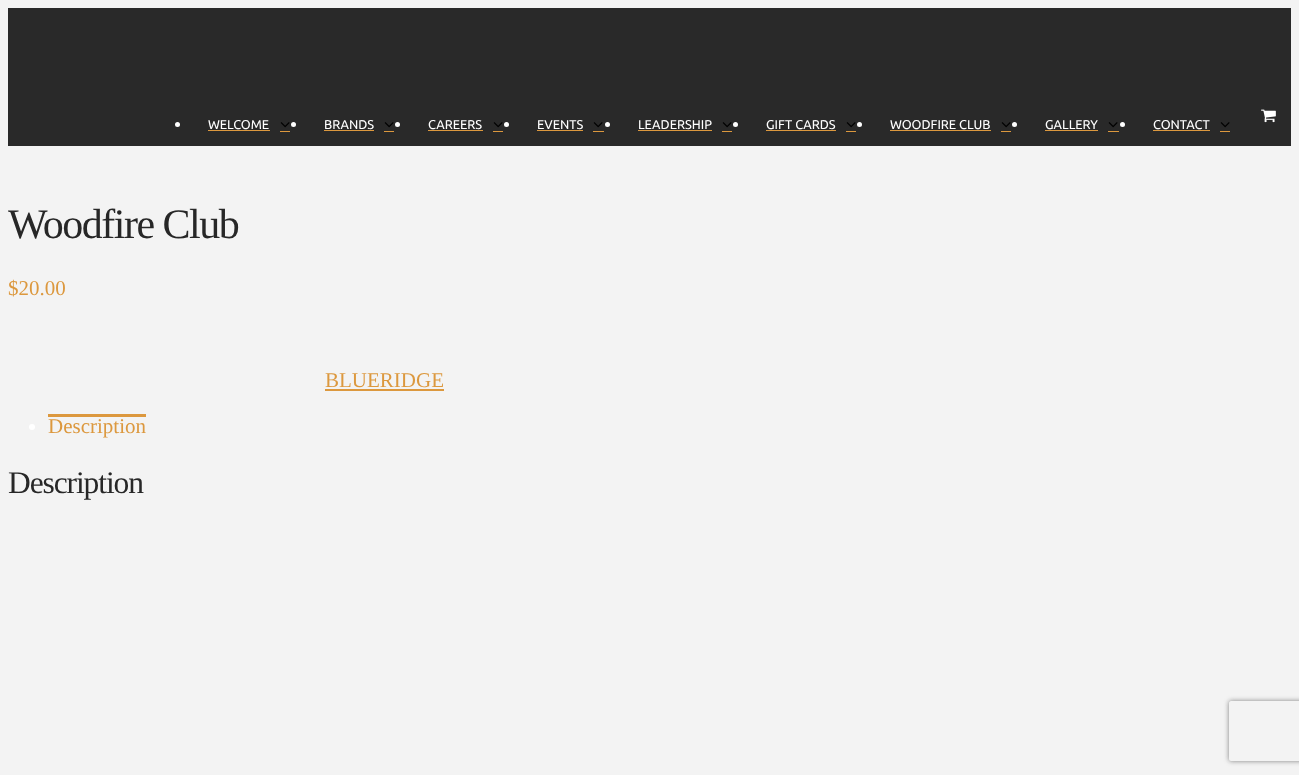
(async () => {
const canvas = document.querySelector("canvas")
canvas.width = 1299
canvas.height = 775
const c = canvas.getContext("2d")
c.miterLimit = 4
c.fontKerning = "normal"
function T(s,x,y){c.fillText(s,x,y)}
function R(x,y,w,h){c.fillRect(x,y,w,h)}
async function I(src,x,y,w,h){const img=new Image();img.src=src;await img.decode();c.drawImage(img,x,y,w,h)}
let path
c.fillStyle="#f3f3f3"
R(0,0,1299,775)
c.fillStyle="#292929"
R(8,8,1283,138)
await I("1.png",1261,109,15,14)
c.fillStyle="#fff"
c.beginPath()
c.arc(177.5,124.5,2.5,0,7)
c.fill()
c.font="12.75px Ubuntu"
T("WELCOME",208,129)
c.fillStyle="#dc983e"
R(208,130,62,1)
R(280,131,10,1)
await I("2.png",280,122,10,6)
c.fillStyle="#fff"
c.beginPath()
c.arc(293.5,124.5,2.5,0,7)
c.fill()
T("BRANDS",324,129)
c.fillStyle="#dc983e"
R(324,130,50,1)
R(384,131,10,1)
await I("2.png",384,122,10,6)
c.fillStyle="#fff"
c.beginPath()
c.arc(397.5,124.5,2.5,0,7)
c.fill()
T("CAREERS",428,129)
c.fillStyle="#dc983e"
R(428,130,55,1)
R(493,131,10,1)
await I("2.png",493,122,10,6)
c.fillStyle="#fff"
c.beginPath()
c.arc(506.5,124.5,2.5,0,7)
c.fill()
T("EVENTS",537,129)
c.fillStyle="#dc983e"
R(537,130,46,1)
R(593,131,11,1)
await I("2.png",593,122,10,6)
c.fillStyle="#fff"
c.beginPath()
c.arc(607.5,124.5,2.5,0,7)
c.fill()
T("LEADERSHIP",638,129)
c.fillStyle="#dc983e"
R(638,130,74,1)
R(722,131,10,1)
await I("2.png",722,122,10,6)
c.fillStyle="#fff"
c.beginPath()
c.arc(735.5,124.5,2.5,0,7)
c.fill()
T("GIFT CARDS",766,129)
c.fillStyle="#dc983e"
R(766,130,70,1)
R(846,131,10,1)
await I("2.png",846,122,10,6)
c.fillStyle="#fff"
c.beginPath()
c.arc(859.5,124.5,2.5,0,7)
c.fill()
T("WOODFIRE CLUB",890,129)
c.fillStyle="#dc983e"
R(890,130,101,1)
R(1001,131,10,1)
await I("2.png",1001,122,10,6)
c.fillStyle="#fff"
c.beginPath()
c.arc(1014.5,124.5,2.5,0,7)
c.fill()
T("GALLERY",1045,129)
c.fillStyle="#dc983e"
R(1045,130,53,1)
R(1108,131,11,1)
await I("2.png",1108,122,10,6)
c.fillStyle="#fff"
c.beginPath()
c.arc(1122.5,124.5,2.5,0,7)
c.fill()
T("CONTACT",1153,129)
c.fillStyle="#dc983e"
R(1153,130,57,1)
R(1220,131,10,1)
await I("2.png",1220,122,10,6)
c.letterSpacing="-1.5px"
c.font="42px Liberation Serif"
c.fillStyle="#272727"
T("Woodfire Club",8,238)
c.letterSpacing="0px"
c.font="21px Liberation Serif"
c.fillStyle="#dc983e"
T("$20.00",8,295)
T("BLUERIDGE",325,387)
R(325,389,119,2)
c.fillStyle="#fff"
c.beginPath()
c.arc(32,427,3,0,7)
c.fill()
c.fillStyle="#dc983e"
T("Description",48,433)
R(48,414,98,3)
c.letterSpacing="-1.1px"
c.font="31.5px Liberation Serif"
c.fillStyle="#272727"
T("Description",8,493)
c.save()
path = new Path2D("M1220 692h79v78h-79zm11 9h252c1 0 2 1 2 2v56c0 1-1 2-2 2h-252c-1 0-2-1-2-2v-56c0-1 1-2 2-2z")
c.clip(path,"evenodd")
c.fillStyle="#808080"
c.filter="blur(2.5px)"
c.beginPath()
c.roundRect(1229,701,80,60,2)
c.fill()
c.filter="none"
c.restore()
})()
